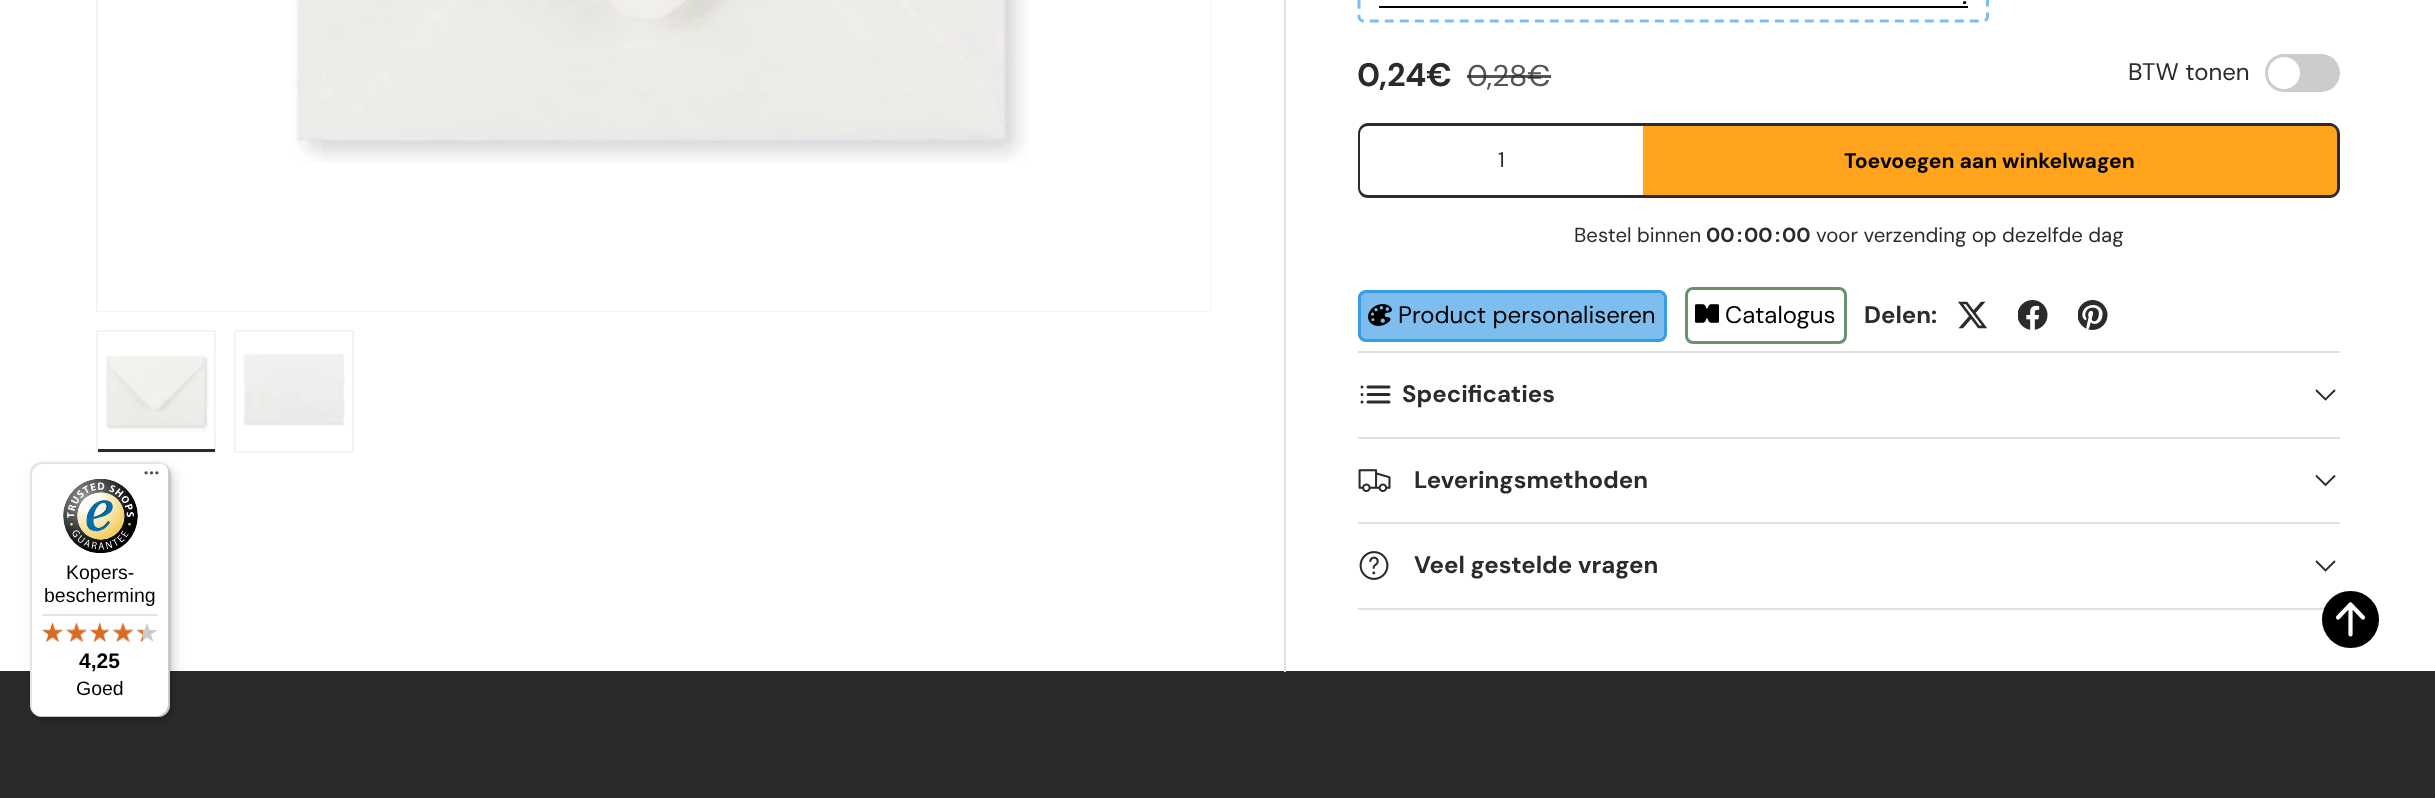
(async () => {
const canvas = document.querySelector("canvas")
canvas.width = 2435
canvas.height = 798
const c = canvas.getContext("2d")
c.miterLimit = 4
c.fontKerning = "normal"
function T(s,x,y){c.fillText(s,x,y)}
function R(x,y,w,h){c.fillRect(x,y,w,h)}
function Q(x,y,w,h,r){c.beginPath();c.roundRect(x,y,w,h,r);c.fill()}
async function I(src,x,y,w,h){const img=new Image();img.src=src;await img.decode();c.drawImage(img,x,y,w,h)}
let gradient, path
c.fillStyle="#fff"
R(0,0,2435,798)
c.fillStyle="#f4f4f4"
R(96,0,1116,312)
c.fillStyle="#fff"
R(98,0,1113,311)
await I("1.png",291,0,737,163)
c.strokeStyle="#f4f4f4"
c.lineWidth=2
c.strokeRect(97,331,118,121)
await I("2.png",106,355,103,77)
c.fillStyle="#2a2b2a"
R(98,449,117,3)
c.strokeRect(235,331,118,121)
await I("3.png",243,353,102,73)
R(0,671,2435,127)
c.fillStyle="#dfdfdf"
R(1284,0,2,672)
path = new Path2D("M1363.5-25.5h619.5c2.5 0 4.5 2 4.5 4.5v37.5c0 2.5-2 4.5-4.5 4.5h-619.5c-2.5 0-4.5-2-4.5-4.5v-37.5c0-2.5 2-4.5 4.5-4.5z")
c.strokeStyle="#7dbeef"
c.lineWidth=3
c.setLineDash([9,6])
c.stroke(path)
c.font="bold 20.4px DM Sans"
c.fillStyle="#000"
T(".",1962,4)
R(1379,6,589,2)
c.font="bold 32.5px 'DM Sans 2'"
c.fillStyle="#2a2b2a"
T("0,24€",1357,86)
c.font="30px DM Sans"
c.fillStyle="#555"
T("0,28€",1467,86)
c.fillStyle="#2a2b2acc"
R(1467,75,84,3)
c.font="24px 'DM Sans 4'"
c.fillStyle="#2a2b2a"
T("BTW tonen",2128,80)
c.fillStyle="#ccc"
Q(2265,54,75,38,19)
c.fillStyle="#fff"
c.beginPath()
c.arc(2284,73,16,0,7)
c.fill()
c.fillStyle="#2a2b2a"
path = new Path2D("M1368 123h274v75h-274c-6 0-10-5-10-10v-54c0-6 4-11 10-11zm0 3h274v69h-274c-4 0-8-3-8-7v-54c0-5 4-8 8-8z")
c.fill(path,"evenodd")
c.font="21.1px 'DM Sans 2'"
T("1",1498,167)
gradient = c.createLinearGradient(846,-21,2300,342)
gradient.addColorStop(.5,"#000")
gradient.addColorStop(.5,"#ffa41c")
gradient.addColorStop(1,"#ffa41c")
c.fillStyle = gradient
R(1643,126,694,69)
c.fillStyle="#2a2b2a"
path = new Path2D("M1642 123h688c5 0 10 5 10 11v54c0 5-5 10-10 10h-688zm0 3h688c4 0 7 3 7 8v54c0 4-3 7-7 7h-688z")
c.fill(path,"evenodd")
c.font="bold 21.1px 'DM Sans 4'"
c.fillStyle="#000"
T("Toevoegen aan winkelwagen",1844,168)
c.font="20.4px 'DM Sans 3'"
c.fillStyle="#2a2b2a"
T("Bestel binnen",1574,242)
c.font="bold 20.4px DM Sans"
T("00",1706,242)
T(":",1737,242)
T("00",1744,242)
T(":",1775,242)
T("00",1782,242)
c.font="20.4px 'DM Sans 3'"
T("voor verzending op dezelfde dag",1816,242)
c.save()
c.beginPath()
c.roundRect(1358,290,309,52,8)
c.clip()
gradient = c.createLinearGradient(776,208,1642,424)
gradient.addColorStop(.6,"#e5f2fc")
gradient.addColorStop(.6,"#7dbeef")
gradient.addColorStop(1,"#7dbeef")
c.fillStyle = gradient
R(1358,293,306,46)
c.restore()
c.beginPath()
c.roundRect(1359.5,291.5,306,49,6.5)
c.strokeStyle="#399ce7"
c.setLineDash([])
c.stroke()
await I("4.png",1368,304,24,22)
c.font="24px 'DM Sans 4'"
c.fillStyle="#000"
T("Product personaliseren",1398,323)
c.beginPath()
c.roundRect(1686.5,288.5,159,54,6.5)
c.strokeStyle="#689170"
c.stroke()
await I("5.png",1695,304,24,19)
T("Catalogus",1725,323)
c.font="bold 24px 'DM Sans 3'"
c.fillStyle="#2a2b2a"
T("Delen:",1864,323)
await I("6.png",1958,301,30,28)
await I("7.png",2018,300,30,30)
await I("8.png",2078,300,30,30)
c.fillStyle="#dfdfdf"
R(1358,351,982,2)
R(1358,437,982,2)
path = new Path2D("M1368 387h21m-21 7.5h21m-21 7.5h21m-27-15h0m0 7.5h0m0 7.5h0")
c.strokeStyle="#2a2b2a"
c.lineCap="round"
c.lineJoin="round"
c.stroke(path)
c.fillStyle="#2a2b2a"
T("Specificaties",1402,402)
path = new Path2D("M2335 390l-9.5 9.5l-9.5-9.5")
c.lineWidth=1.9
c.lineCap="butt"
c.lineJoin="miter"
c.stroke(path)
c.fillStyle="#dfdfdf"
R(1358,522,982,2)
await I("9.png",1358,469,33,23)
c.fillStyle="#2a2b2a"
T("Leveringsmethoden",1414,488)
path = new Path2D("M2335 475.5l-9.5 9.5l-9.5-9.5")
c.stroke(path)
c.fillStyle="#dfdfdf"
R(1358,608,967,2)
await I("10.png",1359,551,30,29)
c.fillStyle="#2a2b2a"
T("Veel gestelde vragen",1414,573)
path = new Path2D("M2335 561l-9.5 9.5l-9.5-9.5")
c.stroke(path)
c.fillStyle="#00000026"
c.filter="blur(6px)"
c.beginPath()
c.roundRect(35,467,139,255,12)
c.fill()
c.filter="none"
c.filter="blur(1.5px)"
c.beginPath()
c.roundRect(32,464,139,255,12)
c.fill()
c.filter="none"
c.fillStyle="#fff"
Q(30,462,140,255,12)
c.fillStyle="#0000001a"
path = new Path2D("M44 464h115c4 0 8 2 10 5c-2-4-6-7-11-7h-116c-7 0-12 5-12 12v231c0 5 3 9 7 11c-3-2-5-6-5-10v-230c0-7 5-12 12-12z")
c.fill(path)
c.fillStyle="#00000033"
path = new Path2D("M35 714c2 2 4 3 7 3h116c7 0 12-5 12-12v-231c0-4-2-7-5-10c2 3 3 5 3 8v232c0 6-5 12-12 12h-116c-2 0-4-1-5-2z")
c.fill(path)
c.fillStyle="#32323233"
path = new Path2D("M34 714c2 2 5 3 8 3h116c7 0 12-5 12-12v-231c0-4-2-7-4-9c2 2 3 5 3 8v231c0 7-6 12-12 12h-116c-3 0-5-1-7-2z")
c.fill(path)
c.fillStyle="#ffffff4d"
path = new Path2D("M33 713c2 2 5 4 9 4h116c7 0 12-5 12-12v-231c0-5-2-8-6-10c3 2 5 5 5 9v231c0 7-6 12-12 12h-116c-3 0-6-1-8-3z")
c.fill(path)
await I("11.png",144,471,15,4)
await I("12.png",63,479,75,75)
c.font="19.5px Liberation Sans"
c.fillStyle="#000"
T("Kopers-",66,579)
T("bescherming",44,602)
c.fillStyle="#e5e5e5"
R(42,614,116,2)
await I("18.png",42,623,21,19)
await I("13.png",42,622,21,20)
await I("19.png",66,623,21,19)
await I("14.png",66,622,21,20)
await I("20.png",90,623,19,19)
await I("15.png",90,622,19,20)
await I("21.png",113,623,20,19)
await I("16.png",112,622,22,20)
await I("22.png",137,623,20,19)
await I("17.png",137,629,6,13)
c.font="bold 21px Liberation Sans"
c.fillStyle="#000"
T("4,25",79,668)
c.font="19.5px Liberation Sans"
T("Goed",76,695)
c.beginPath()
c.arc(2350.5,619.5,27,0,7)
c.fill()
c.strokeStyle="#000"
c.lineWidth=3
c.stroke()
path = new Path2D("M2350.5 604.5v30m0-30l-12.5 13m12.5-13l12.5 13")
c.strokeStyle="#fff"
c.lineWidth=4.2
c.lineCap="round"
c.lineJoin="round"
c.stroke(path)
})()
